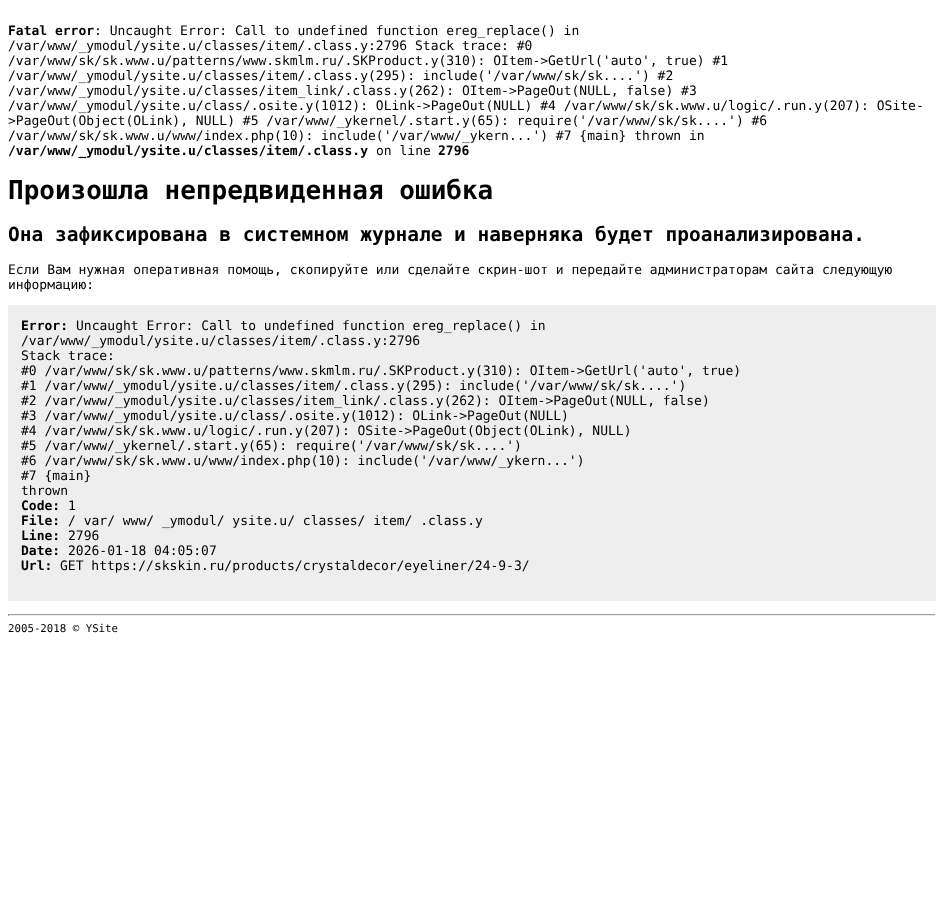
(async () => {
const canvas = document.querySelector("canvas")
canvas.width = 944
canvas.height = 900
const c = canvas.getContext("2d")
c.miterLimit = 4
c.fontKerning = "normal"
function T(s,x,y){c.fillText(s,x,y)}
function R(x,y,w,h){c.fillRect(x,y,w,h)}
c.fillStyle="#fff"
R(0,0,944,900)
c.font="bold 13px DejaVu Sans Mono"
c.fillStyle="#000"
T("Fatal error",8,35)
c.font="13px DejaVu Sans Mono"
T(": Uncaught Error: Call to undefined function ereg_replace() in",94,35)
T("/var/www/_ymodul/ysite.u/classes/item/.class.y:2796 Stack trace: #0",8,50)
T("/var/www/sk/sk.www.u/patterns/www.skmlm.ru/.SKProduct.y(310): OItem->GetUrl('auto', true) #1",8,65)
T("/var/www/_ymodul/ysite.u/classes/item/.class.y(295): include('/var/www/sk/sk....') #2",8,80)
T("/var/www/_ymodul/ysite.u/classes/item_link/.class.y(262): OItem->PageOut(NULL, false) #3",8,95)
T("/var/www/_ymodul/ysite.u/class/.osite.y(1012): OLink->PageOut(NULL) #4 /var/www/sk/sk.www.u/logic/.run.y(207): OSite-",8,110)
T(">PageOut(Object(OLink), NULL) #5 /var/www/_ykernel/.start.y(65): require('/var/www/sk/sk....') #6",8,125)
T("/var/www/sk/sk.www.u/www/index.php(10): include('/var/www/_ykern...') #7 {main} thrown in",8,140)
c.font="bold 13px DejaVu Sans Mono"
T("/var/www/_ymodul/ysite.u/classes/item/.class.y",8,155)
c.font="13px DejaVu Sans Mono"
T("on line",376,155)
c.font="bold 13px DejaVu Sans Mono"
T("2796",438,155)
c.font="bold 26px DejaVu Sans Mono"
T("Произошла непредвиденная ошибка",8,199)
c.font="bold 19.5px DejaVu Sans Mono"
T("Она зафиксирована в системном журнале и наверняка будет проанализирована.",8,241)
c.font="13px DejaVu Sans Mono"
T("Если Вам нужная оперативная помощь, скопируйте или сделайте скрин-шот и передайте администраторам сайта следующую",8,274)
T("информацию:",8,289)
c.fillStyle="#eee"
R(8,305,928,296)
c.font="bold 13px DejaVu Sans Mono"
c.fillStyle="#000"
T("Error:",21,330)
c.font="13px DejaVu Sans Mono"
T("Uncaught Error: Call to undefined function ereg_replace() in",76,330)
T("/var/www/_ymodul/ysite.u/classes/item/.class.y:2796",21,345)
T("Stack trace:",21,360)
T("#0 /var/www/sk/sk.www.u/patterns/www.skmlm.ru/.SKProduct.y(310): OItem->GetUrl('auto', true)",21,375)
T("#1 /var/www/_ymodul/ysite.u/classes/item/.class.y(295): include('/var/www/sk/sk....')",21,390)
T("#2 /var/www/_ymodul/ysite.u/classes/item_link/.class.y(262): OItem->PageOut(NULL, false)",21,405)
T("#3 /var/www/_ymodul/ysite.u/class/.osite.y(1012): OLink->PageOut(NULL)",21,420)
T("#4 /var/www/sk/sk.www.u/logic/.run.y(207): OSite->PageOut(Object(OLink), NULL)",21,435)
T("#5 /var/www/_ykernel/.start.y(65): require('/var/www/sk/sk....')",21,450)
T("#6 /var/www/sk/sk.www.u/www/index.php(10): include('/var/www/_ykern...')",21,465)
T("#7 {main}",21,480)
T("thrown",21,495)
c.font="bold 13px DejaVu Sans Mono"
T("Code:",21,510)
c.font="13px DejaVu Sans Mono"
T("1",68,510)
c.font="bold 13px DejaVu Sans Mono"
T("File:",21,525)
c.font="13px DejaVu Sans Mono"
T("/ var/ www/ _ymodul/ ysite.u/ classes/ item/ .class.y",68,525)
c.font="bold 13px DejaVu Sans Mono"
T("Line:",21,540)
c.font="13px DejaVu Sans Mono"
T("2796",68,540)
c.font="bold 13px DejaVu Sans Mono"
T("Date:",21,555)
c.font="13px DejaVu Sans Mono"
T("2026-01-18 04:05:07",68,555)
c.font="bold 13px DejaVu Sans Mono"
T("Url:",21,570)
c.font="13px DejaVu Sans Mono"
T("GET https://skskin.ru/products/crystaldecor/eyeliner/24-9-3/",60,570)
c.fillStyle="#9f9f9f"
R(8,614,928,1)
c.fillStyle="#eee"
R(935,614,1,2)
R(8,615,928,1)
c.fillStyle="#9f9f9f"
R(8,614,1,2)
c.font="10.75px DejaVu Sans Mono"
c.fillStyle="#000"
T("2005-2018 © YSite",8,632)
})()
